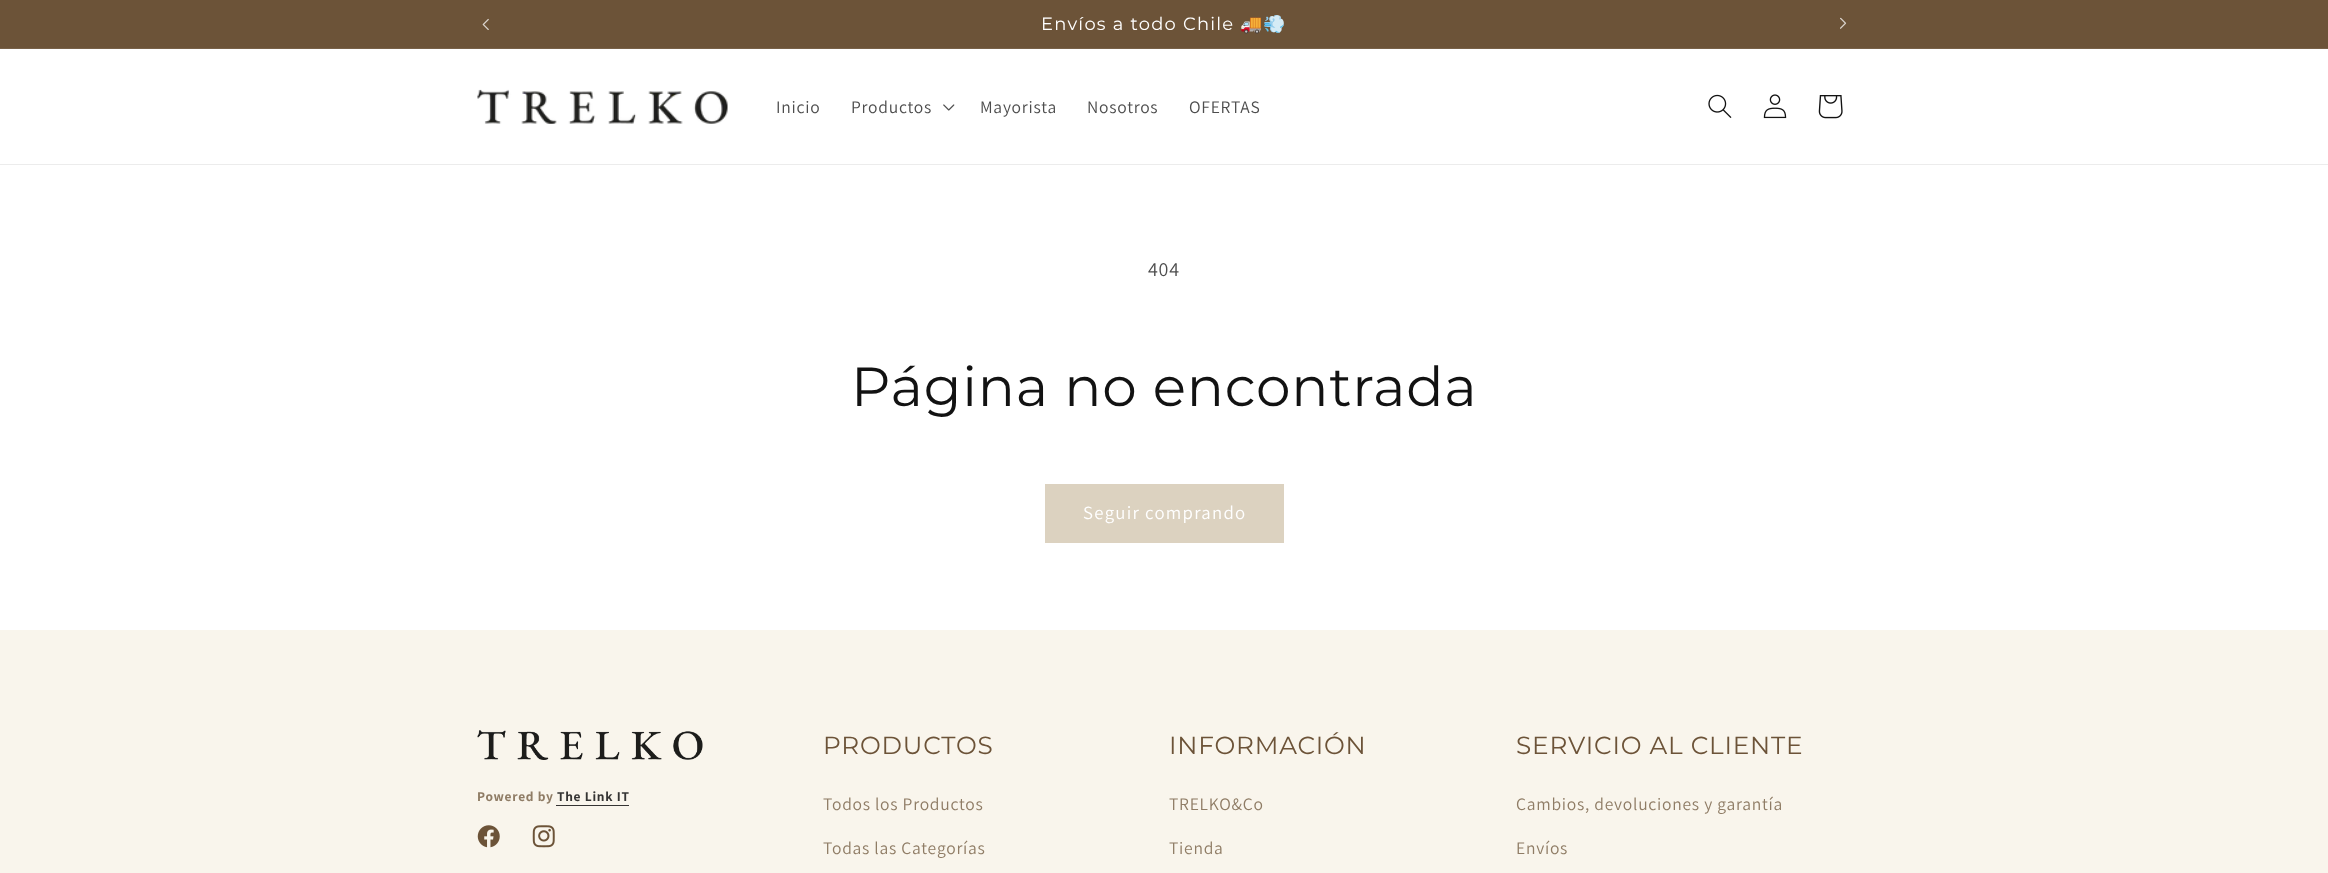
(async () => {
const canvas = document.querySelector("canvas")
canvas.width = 2328
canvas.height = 873
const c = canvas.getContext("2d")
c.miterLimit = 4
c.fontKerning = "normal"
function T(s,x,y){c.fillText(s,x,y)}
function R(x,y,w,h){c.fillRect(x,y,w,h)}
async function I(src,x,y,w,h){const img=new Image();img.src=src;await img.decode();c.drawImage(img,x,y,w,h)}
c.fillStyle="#fff"
R(0,0,2328,873)
c.fillStyle="#6c5338"
R(0,0,2328,48)
c.fillStyle="#786148"
R(0,48,2328,1)
await I("1.png",482,18,7,12)
c.letterSpacing="1.25px"
c.font="17.9px Montserrat"
c.fillStyle="#fff"
T("Envíos a todo Chile",1041,30)
c.font="17.9px Noto Color Emoji"
T("🚚💨",1240,30)
await I("2.png",1840,17,7,12)
c.fillStyle="#ececec"
R(0,164,2328,1)
await I("3.png",477,89,251,35)
c.letterSpacing="0.75px"
c.font="17.5px Assistant"
c.fillStyle="#4d4d4d"
T("Inicio",776,113)
T("Productos",851,113)
await I("4.png",943,104,12,7)
T("Mayorista",980,113)
T("Nosotros",1087,113)
T("OFERTAS",1189,113)
await I("5.png",1708,94,24,24)
await I("6.png",1763,94,24,25)
await I("7.png",1818,95,25,24)
c.font="20px Assistant"
T("404",1148,276)
c.letterSpacing="0.8px"
c.font="55px Montserrat"
c.fillStyle="#121212"
T("Página no encontrada",851,406)
c.fillStyle="#dcd2c0"
R(1045,484,239,59)
c.letterSpacing="1.25px"
c.font="18.75px Assistant"
c.fillStyle="#fff"
T("Seguir comprando",1083,519)
c.fillStyle="#f9f5ec"
R(0,630,2328,243)
await I("8.png",477,730,226,30)
c.letterSpacing="0.75px"
c.font="bold 13.5px Assistant"
c.fillStyle="#8f7c65"
T("Powered by",477,801)
c.fillStyle="#353433"
T("The Link IT",557,801)
R(556,805,73,1)
await I("9.png",477,825,23,23)
await I("10.png",532,825,23,23)
c.letterSpacing="0.8px"
c.font="24.75px Montserrat"
c.fillStyle="#6c5338"
T("PRODUCTOS",823,754)
c.letterSpacing="0.75px"
c.font="17.5px Assistant"
c.fillStyle="#8f7c65"
T("Todos los Productos",823,810)
T("Todas las Categorías",823,854)
c.letterSpacing="0.8px"
c.font="24.75px Montserrat"
c.fillStyle="#6c5338"
T("INFORMACIÓN",1169,754)
c.letterSpacing="0.75px"
c.font="17.5px Assistant"
c.fillStyle="#8f7c65"
T("TRELKO&Co",1169,810)
T("Tienda",1169,854)
c.letterSpacing="0.8px"
c.font="24.75px Montserrat"
c.fillStyle="#6c5338"
T("SERVICIO AL CLIENTE",1516,754)
c.letterSpacing="0.75px"
c.font="17.5px Assistant"
c.fillStyle="#8f7c65"
T("Cambios, devoluciones y garantía",1516,810)
T("Envíos",1516,854)
})()
